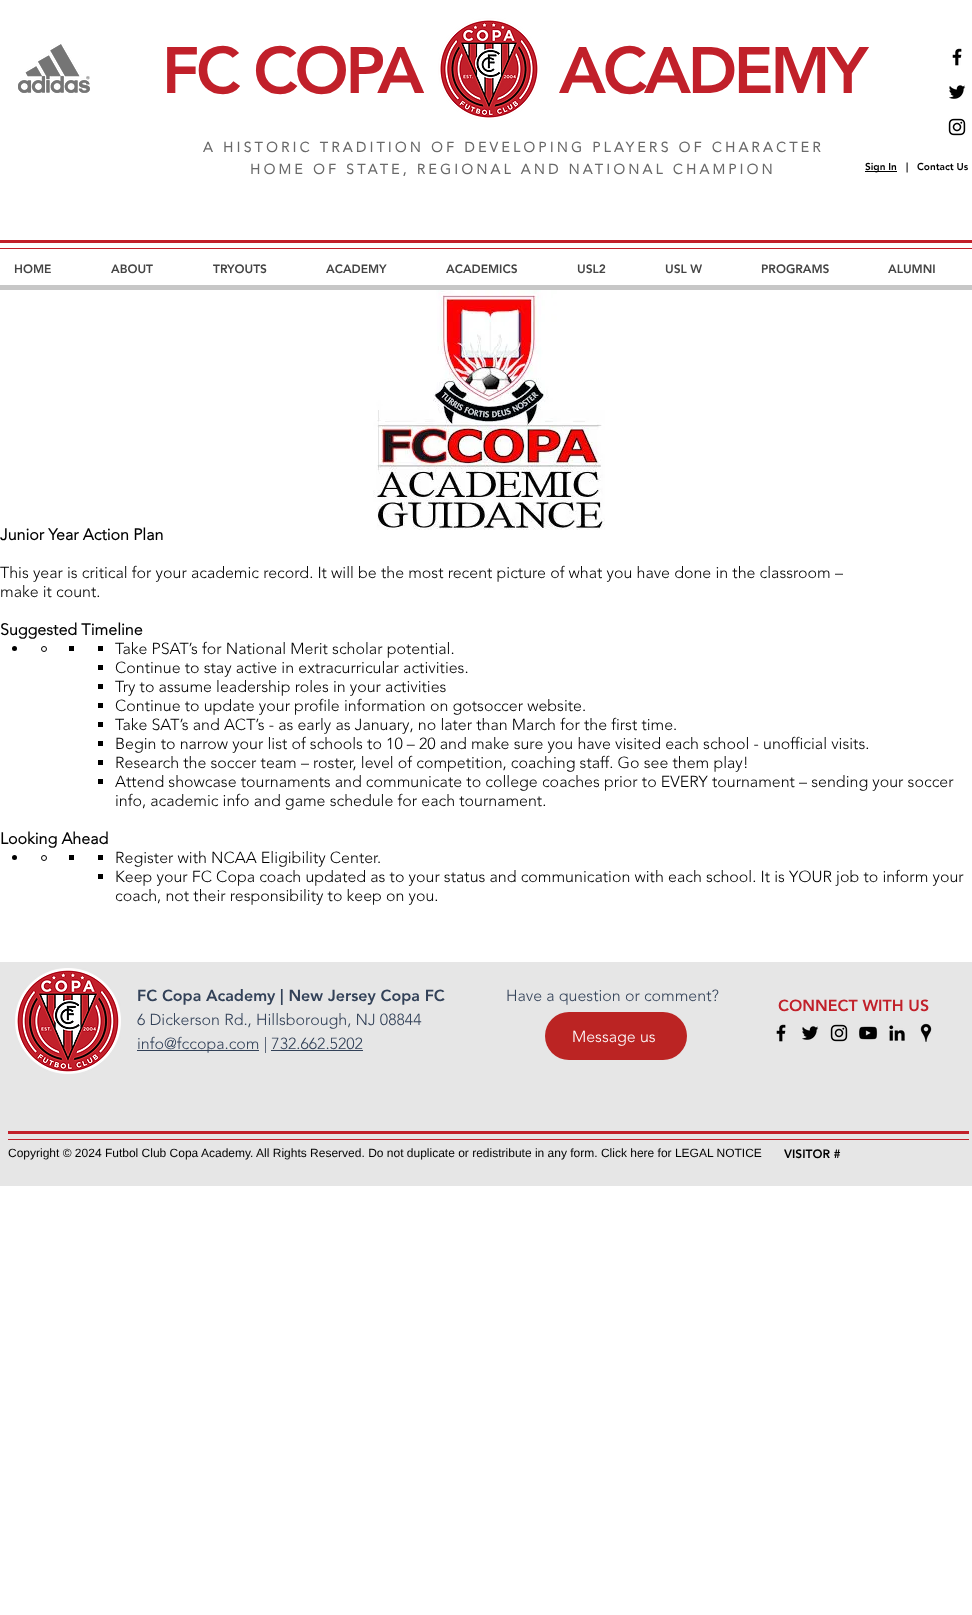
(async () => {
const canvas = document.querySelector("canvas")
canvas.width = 972
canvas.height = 1615
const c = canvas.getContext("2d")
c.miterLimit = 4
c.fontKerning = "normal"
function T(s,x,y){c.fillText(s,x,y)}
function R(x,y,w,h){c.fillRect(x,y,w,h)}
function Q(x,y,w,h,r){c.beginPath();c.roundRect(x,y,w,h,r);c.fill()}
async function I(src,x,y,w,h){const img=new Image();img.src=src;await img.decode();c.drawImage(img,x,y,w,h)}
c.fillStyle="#fff"
R(0,0,972,1615)
await I("1.png",18,44,72,49)
c.letterSpacing="-3.25px"
c.font="900 65px 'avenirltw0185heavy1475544'"
c.fillStyle="#c1202a"
T("FC COPA",162,93)
await I("2.png",438,18,102,102)
T("ACADEMY",559,93)
await I("3.png",952,48,10,18)
await I("4.png",949,85,17,14)
await I("5.png",948,118,18,18)
c.letterSpacing="3.35px"
c.font="bold 14px 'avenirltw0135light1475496'"
c.fillStyle="#696969"
T("A HISTORIC TRADITION OF DEVELOPING PLAYERS OF CHARACTER",203,152)
T("HOME OF STATE, REGIONAL AND NATIONAL CHAMPION",250,174)
c.fillStyle="#000"
R(865,171,32,1)
c.letterSpacing="0px"
c.font="900 10px 'avenirltw0185heavy1475544'"
T("Sign In",865,170)
T("|",906,170)
T("Contact Us",917,170)
c.fillStyle="#c2202a"
R(0,240,972,3)
R(0,248,972,1)
c.font="900 12px 'avenirltw0185heavy1475544'"
c.fillStyle="#444"
T("HOME",14,273)
T("ABOUT",111,273)
T("TRYOUTS",213,273)
T("ACADEMY",326,273)
T("ACADEMICS",446,273)
T("USL2",577,273)
T("USL W",665,273)
T("PROGRAMS",761,273)
T("ALUMNI",888,273)
c.fillStyle="#c7c7c7"
R(0,285,972,5)
await I("6.png",373,290,232,240)
c.font="bold 16px 'avenirltw0135light1475496'"
c.fillStyle="#000"
T("Junior Year Action Plan",0,540)
c.font="300 16px 'avenirltw0135light1475496'"
T("This year is critical for your academic record. It will be the most recent picture of what you have done in the classroom –",0,578)
T("make it count.",0,597)
c.font="bold 16px 'avenirltw0135light1475496'"
T("Suggested Timeline",0,635)
c.beginPath()
c.arc(14.5,648.5,2.5,0,7)
c.fill()
c.beginPath()
c.arc(44,649,2.5,0,7)
c.strokeStyle="#000"
c.stroke()
R(69,646,5,5)
R(98,646,5,5)
c.font="300 16px 'avenirltw0135light1475496'"
T("Take PSAT’s for National Merit scholar potential.",115,654)
R(98,665,5,5)
T("Continue to stay active in extracurricular activities.",115,673)
R(98,684,5,5)
T("Try to assume leadership roles in your activities",115,692)
R(98,703,5,5)
T("Continue to update your profile information on gotsoccer website.",115,711)
R(98,722,5,5)
T("Take SAT’s and ACT’s - as early as January, no later than March for the first time.",115,730)
R(98,741,5,5)
T("Begin to narrow your list of schools to 10 – 20 and make sure you have visited each school - unofficial visits.",115,749)
R(98,760,5,5)
T("Research the soccer team – roster, level of competition, coaching staff. Go see them play!",115,768)
R(98,779,5,5)
T("Attend showcase tournaments and communicate to college coaches prior to EVERY tournament – sending your soccer",115,787)
T("info, academic info and game schedule for each tournament.",115,806)
c.font="bold 16px 'avenirltw0135light1475496'"
T("Looking Ahead",0,844)
c.beginPath()
c.arc(14.5,857.5,2.5,0,7)
c.fill()
c.beginPath()
c.arc(44,858,2.5,0,7)
c.stroke()
R(69,855,5,5)
R(98,855,5,5)
c.font="300 16px 'avenirltw0135light1475496'"
T("Register with NCAA Eligibility Center.",115,863)
R(98,874,5,5)
T("Keep your FC Copa coach updated as to your status and communication with each school. It is YOUR job to inform your",115,882)
T("coach, not their responsibility to keep on you.",115,901)
c.fillStyle="#e6e6e6"
R(0,962,972,224)
await I("7.png",15,968,106,106)
c.font="900 16px 'avenirltw0185heavy1475544'"
c.fillStyle="#324158"
T("FC Copa Academy | New Jersey Copa FC",137,1001)
c.font="300 16px 'avenirltw0135light1475496'"
T("6 Dickerson Rd., Hillsborough, NJ 08844",137,1025)
R(137,1050,122,1)
T("info@fccopa.com | 732.662.5202",137,1049)
R(271,1050,92,1)
T("Have a question or comment?",506,1001)
c.font="900 16px 'avenirltw0185heavy1475544'"
c.fillStyle="#c1202a"
T("CONNECT WITH US",778,1011)
await I("8.png",776,1024,10,18)
await I("9.png",802,1026,17,14)
await I("10.png",830,1024,18,18)
await I("11.png",859,1026,19,14)
await I("12.png",889,1025,16,16)
await I("13.png",920,1023,12,19)
c.fillStyle="#bb2423"
Q(545,1012,142,48,24)
c.font="300 16px 'avenirltw0135light1475496'"
c.fillStyle="#fff"
T("Message us",572,1042)
c.fillStyle="#c2202a"
R(8,1131,961,3)
R(8,1139,961,1)
c.font="12px Liberation Sans"
c.fillStyle="#000"
T("Copyright © 2024 Futbol Club Copa Academy. All Rights Reserved. Do not duplicate or redistribute in any form. Click here for LEGAL NOTICE",8,1157)
c.font="900 12px 'avenirltw0185heavy1475544'"
T("VISITOR #",784,1158)
})()
